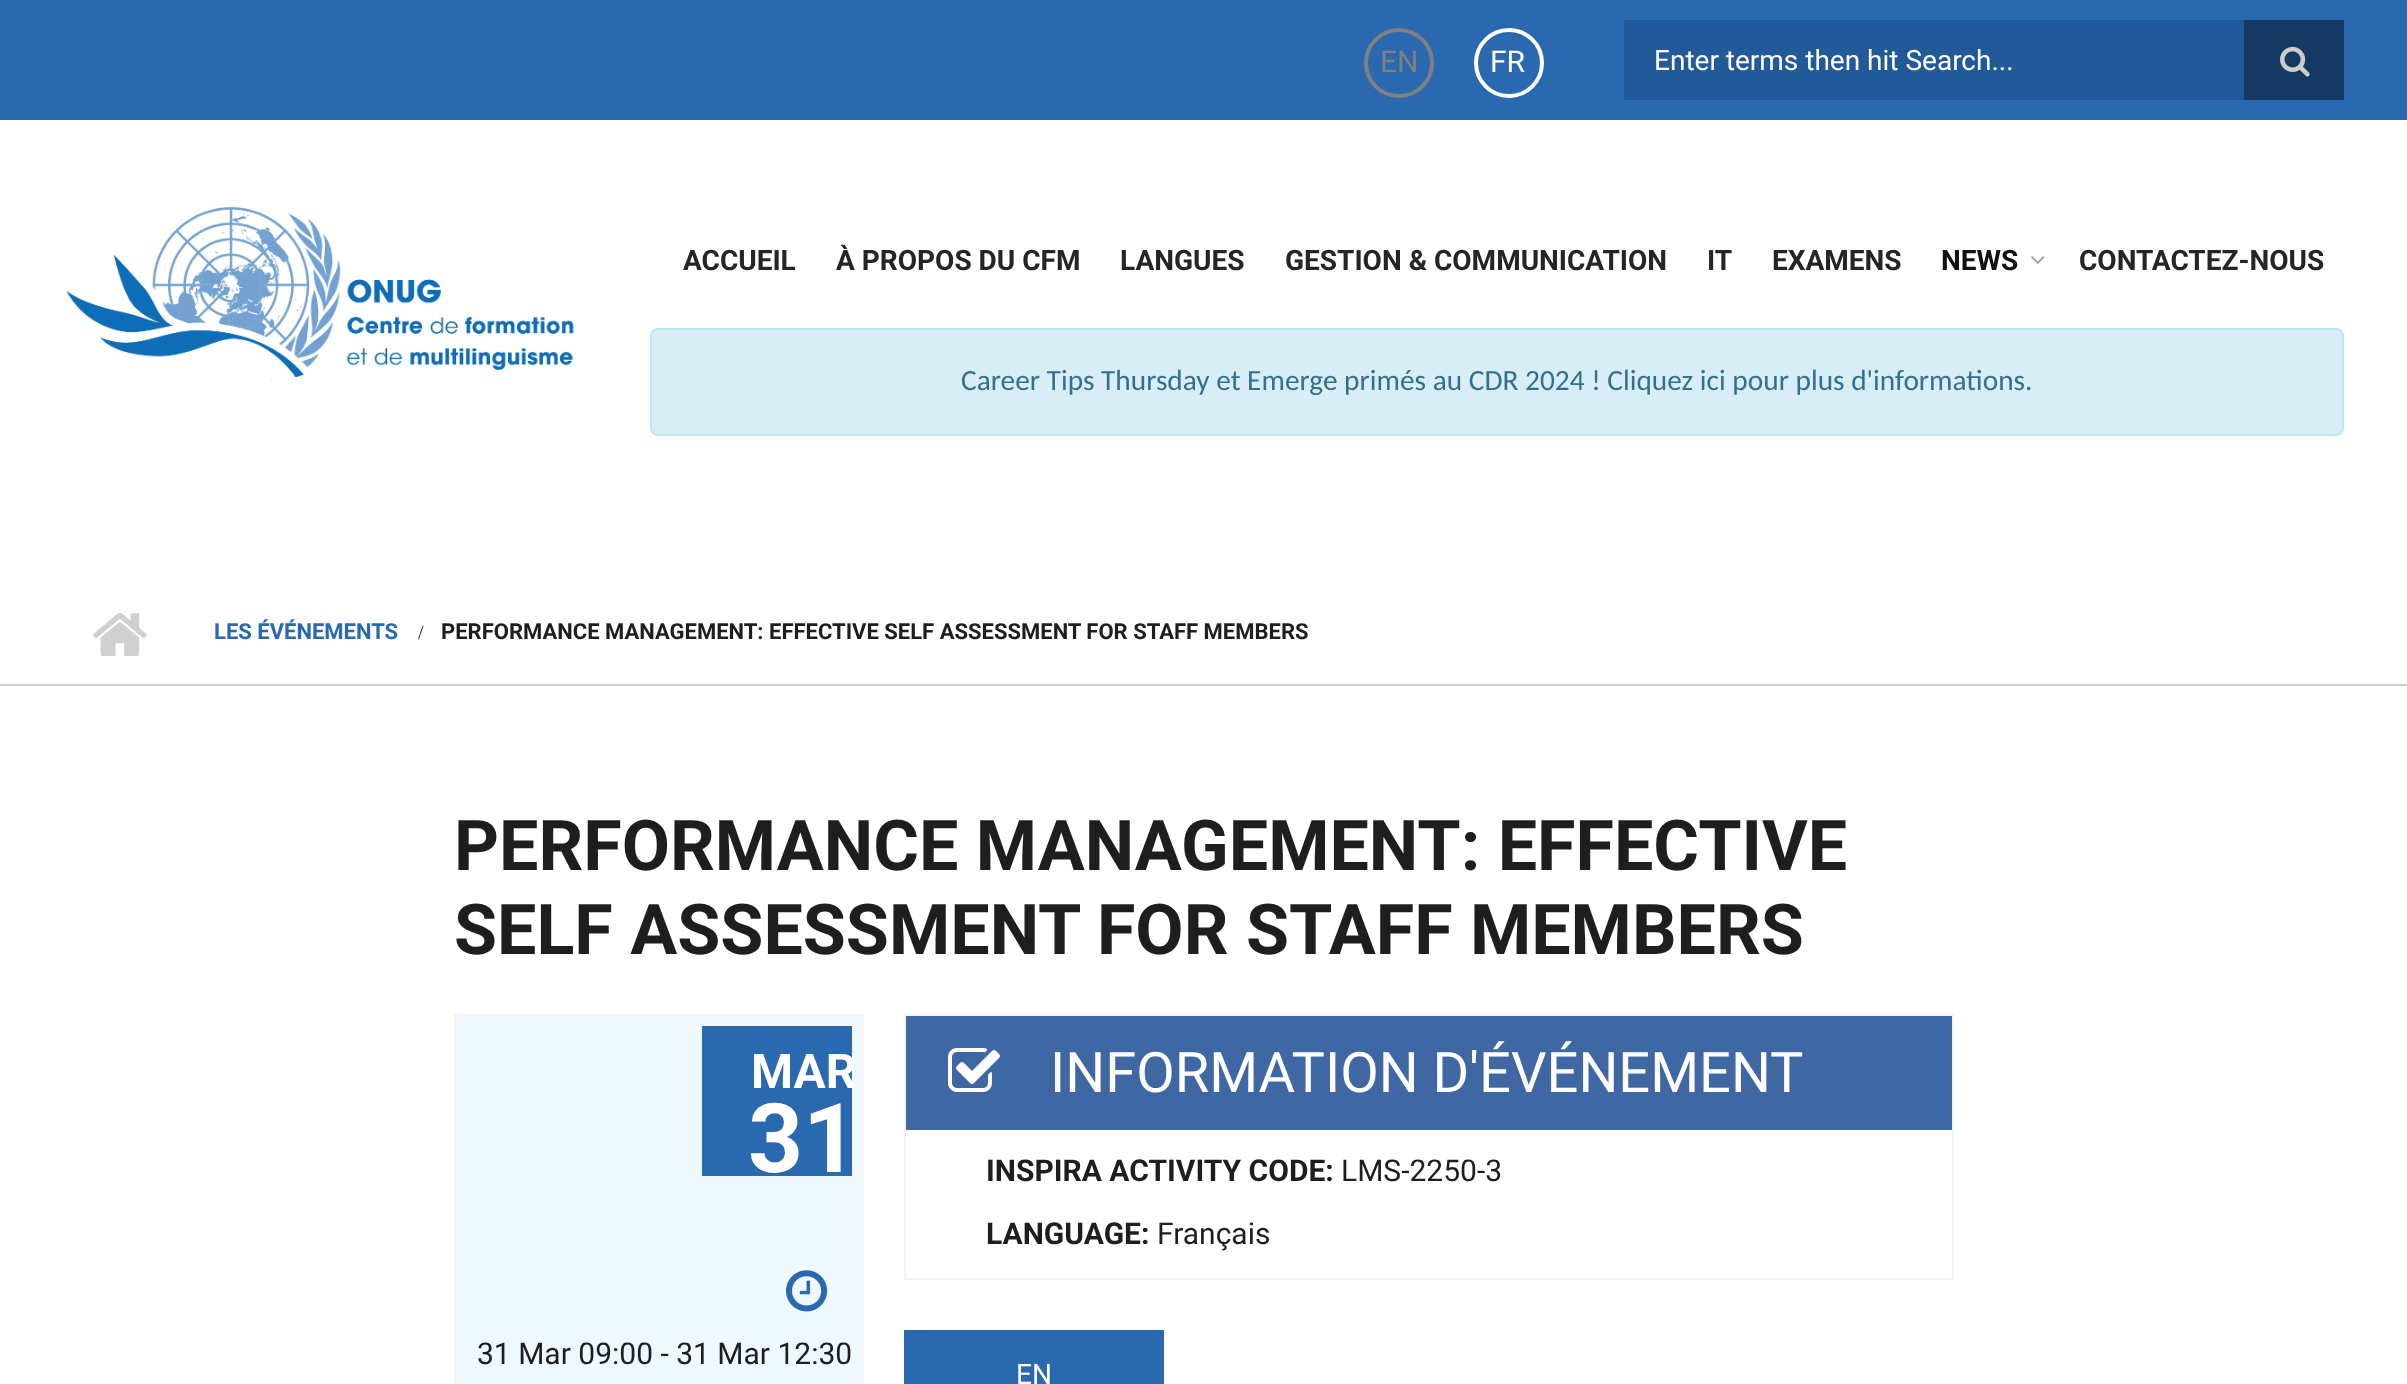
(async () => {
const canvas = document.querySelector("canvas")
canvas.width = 2407
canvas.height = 1384
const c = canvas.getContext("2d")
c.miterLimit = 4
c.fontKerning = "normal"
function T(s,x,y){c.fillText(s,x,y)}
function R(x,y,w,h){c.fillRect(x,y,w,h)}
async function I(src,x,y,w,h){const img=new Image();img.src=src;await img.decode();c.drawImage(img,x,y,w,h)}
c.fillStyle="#fff"
R(0,0,2407,1384)
c.fillStyle="#2a68af"
R(0,0,2407,120)
c.beginPath()
c.arc(1399,63,33,0,7)
c.strokeStyle="#808080"
c.lineWidth=4
c.stroke()
c.font="30px Roboto"
c.fillStyle="#808080"
T("EN",1380,72)
c.beginPath()
c.arc(1509,63,33,0,7)
c.strokeStyle="#fff"
c.stroke()
c.fillStyle="#fff"
T("FR",1490,72)
c.fillStyle="#215999"
R(1624,20,620,80)
c.font="28px Roboto"
c.fillStyle="#fff"
T("Enter terms then hit Search...",1654,70)
c.fillStyle="#153962"
R(2244,20,100,80)
await I("1.png",2280,46,30,31)
await I("2.png",66,207,508,174)
c.font="bold 28px Roboto"
c.fillStyle="#252525"
T("ACCUEIL",683,270)
T("À PROPOS DU CFM",836,270)
T("LANGUES",1120,270)
T("GESTION & COMMUNICATION",1285,270)
T("IT",1707,270)
T("EXAMENS",1772,270)
c.fillStyle="#111"
T("NEWS",1941,270)
await I("3.png",2031,256,14,8)
c.fillStyle="#252525"
T("CONTACTEZ-NOUS",2079,270)
c.fillStyle="#d9edf7"
c.beginPath()
c.roundRect(651,329,1692,106,7)
c.fill()
c.strokeStyle="#bce8f1"
c.lineWidth=2
c.stroke()
c.font="29.35px Carlito"
c.fillStyle="#31708f"
T("Career Tips Thursday et Emerge primés au CDR 2024 ! Cliquez ici pour plus d'informations.",961,390)
c.fillStyle="#cfd0d2"
R(0,684,2407,2)
await I("4.png",93,613,54,43)
c.font="bold 22px Roboto"
c.fillStyle="#2a68af"
T("LES ÉVÉNEMENTS",214,639)
c.font="20px Liberation Serif"
c.fillStyle="#1e1e1e"
T("/",418,639)
c.font="bold 22px Roboto"
T("PERFORMANCE MANAGEMENT: EFFECTIVE SELF ASSESSMENT FOR STAFF MEMBERS",441,639)
c.font="bold 70px Roboto"
T("PERFORMANCE MANAGEMENT: EFFECTIVE",454,870)
T("SELF ASSESSMENT FOR STAFF MEMBERS",454,954)
c.fillStyle="#f0f8ff"
c.beginPath()
c.rect(455,1015,408,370)
c.fill()
c.strokeStyle="#f5f5f5"
c.stroke()
c.fillStyle="#2a68af"
R(702,1026,150,150)
c.font="bold 48px Roboto"
c.fillStyle="#fff"
T("MAR",751,1088)
c.font="bold 96px Roboto"
T("31",748,1172)
await I("5.png",786,1270,42,42)
c.font="30px Roboto"
c.fillStyle="#1e1e1e"
T("31 Mar 09:00 - 31 Mar 12:30",477,1364)
c.strokeRect(905,1015,1048,264)
c.fillStyle="#3f67a3"
R(906,1016,1046,114)
await I("6.png",948,1048,52,44)
c.font="56px Roboto"
c.fillStyle="#fff"
T("INFORMATION D'ÉVÉNEMENT",1050,1092)
c.font="bold 30px Roboto"
c.fillStyle="#1e1e1e"
T("INSPIRA ACTIVITY CODE:",986,1181)
c.font="30px Roboto"
T("LMS-2250-3",1341,1181)
c.font="bold 30px Roboto"
T("LANGUAGE:",986,1244)
c.font="30px Roboto"
T("Français",1157,1244)
c.fillStyle="#2a68af"
R(904,1330,260,54)
c.font="28px Roboto"
c.fillStyle="#fff"
T("EN",1016,1384)
})()
